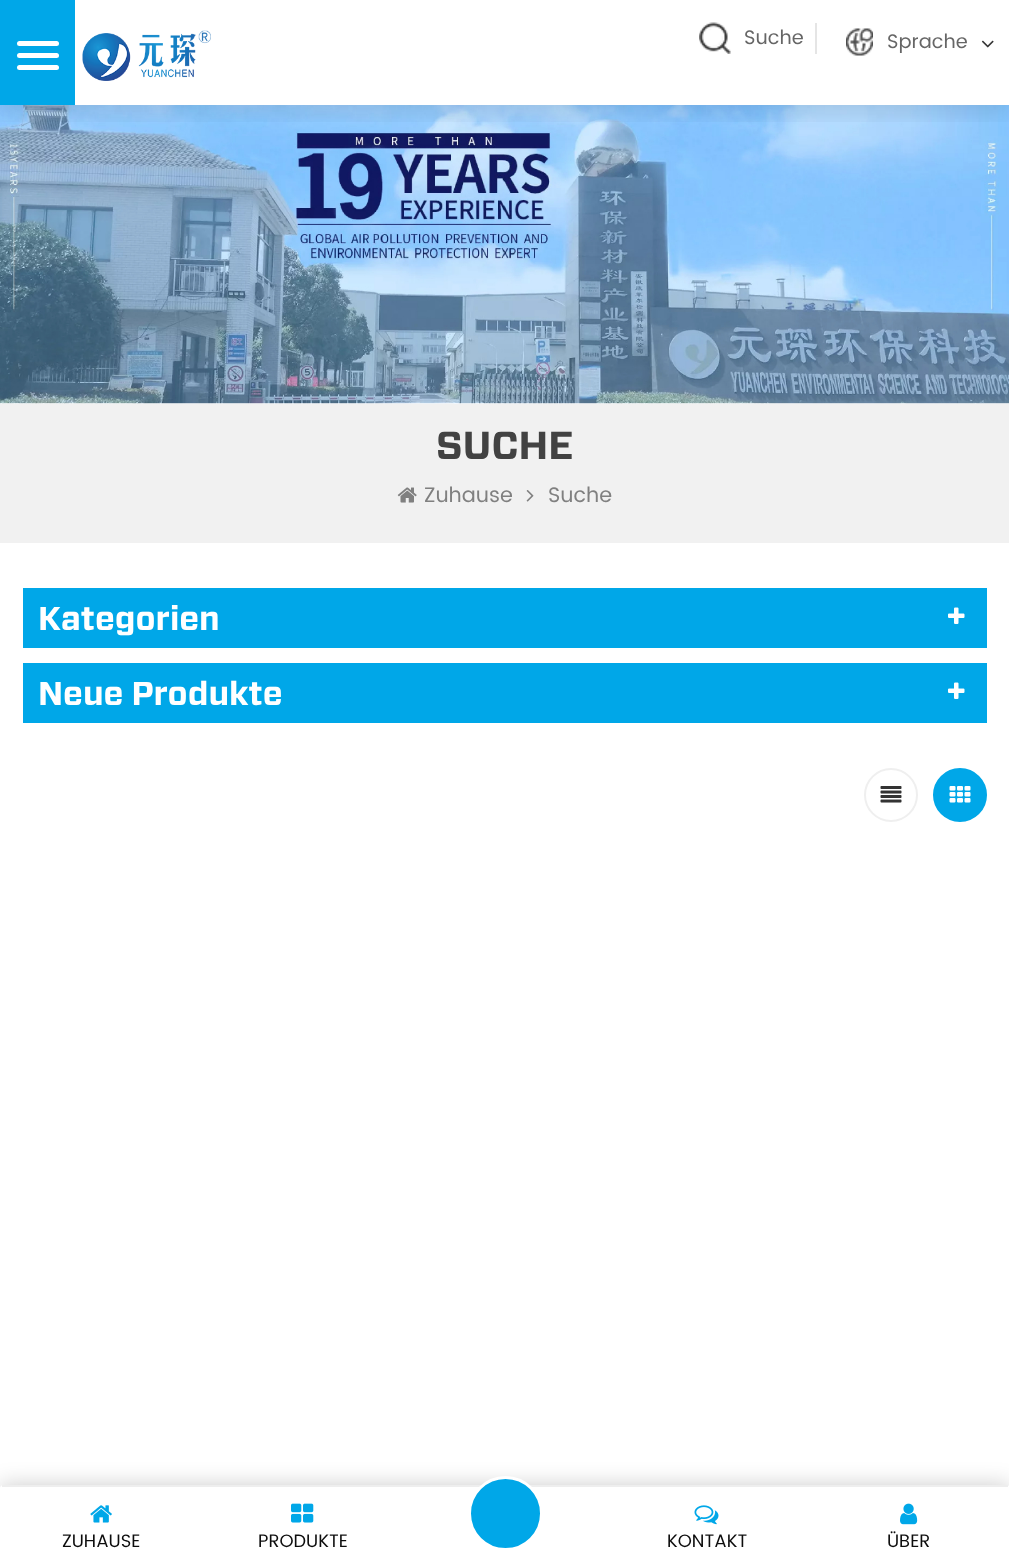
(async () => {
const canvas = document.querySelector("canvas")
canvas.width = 1009
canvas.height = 1565
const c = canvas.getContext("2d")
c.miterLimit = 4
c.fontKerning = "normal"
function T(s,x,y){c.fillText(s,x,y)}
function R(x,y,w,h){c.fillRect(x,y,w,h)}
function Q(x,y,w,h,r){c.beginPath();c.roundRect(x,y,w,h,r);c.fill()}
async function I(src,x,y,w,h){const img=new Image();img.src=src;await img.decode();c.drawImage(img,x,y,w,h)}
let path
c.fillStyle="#fff"
R(0,0,1009,1565)
await I("5.png",0,105,1009,299)
c.save()
c.beginPath()
c.rect(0,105,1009,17)
c.clip()
c.fillStyle="#0000001a"
c.filter="blur(11px)"
c.beginPath()
c.rect(0,8,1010,105)
c.fill()
c.filter="none"
c.restore()
await I("1.png",82,30,129,51)
c.fillStyle="#00a7e8"
R(0,0,75,105)
c.fillStyle="#fff"
Q(17,53,42,5,2.5)
Q(17,41,42,5,2.5)
Q(17,65,42,5,2.5)
c.fillStyle="#e5e5e5"
R(815,23,2,31)
await I("2.png",699,22,32,32)
c.font="19.5px Poppins"
c.fillStyle="#666"
T("Suche",744,44)
await I("3.png",846,28,27,28)
T("Sprache",887,48)
await I("4.png",981,40,13,8)
c.fillStyle="#f1f1f1"
R(0,404,1009,139)
c.font="bold 39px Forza"
c.fillStyle="#424242"
T("SUCHE",436,459)
await I("6.png",397,487,20,16)
c.font="21px Poppins"
c.fillStyle="#808080"
T("Zuhause",424,502)
await I("7.png",526,490,8,12)
T("Suche",548,502)
c.fillStyle="#00a7e8"
R(23,588,964,60)
c.font="bold 33px Forza"
c.fillStyle="#fff"
T("Kategorien",38,630)
await I("8.png",948,607,17,17)
c.fillStyle="#00a7e8"
R(23,663,964,60)
c.fillStyle="#fff"
T("Neue Produkte",38,705)
await I("8.png",948,682,17,17)
c.beginPath()
c.arc(891,795,26,0,7)
c.strokeStyle="#efefef"
c.lineWidth=2
c.stroke()
await I("9.png",880,786,22,17)
c.fillStyle="#00a7e8"
c.beginPath()
c.arc(960,795,26,0,7)
c.fill()
c.strokeStyle="#00a7e8"
c.stroke()
await I("10.png",949,786,22,17)
c.fillStyle="#00000033"
c.filter="blur(11px)"
c.beginPath()
c.roundRect(0,1485,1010,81,3)
c.fill()
c.filter="none"
c.fillStyle="#fff"
path = new Path2D("M3 1485h1004c1.5 0 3 1.5 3 3v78h-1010v-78c0-1.5 1.5-3 3-3z")
c.fill(path)
c.fillStyle="#eee"
R(2,1485,1006,2)
c.fillStyle="#00a7e8"
c.beginPath()
c.arc(505.5,1513.5,36,0,7)
c.fill()
c.strokeStyle="#fff"
c.lineWidth=3
c.stroke()
await I("11.png",90,1505,22,18)
c.font="18px Poppins"
c.fillStyle="#0d0d0d"
T("ZUHAUSE",62,1547)
await I("12.png",291,1503,23,20)
T("PRODUKTE",258,1547)
await I("13.png",694,1505,25,20)
T("KONTAKT",667,1547)
await I("14.png",900,1503,18,22)
T("ÜBER",887,1547)
})()
